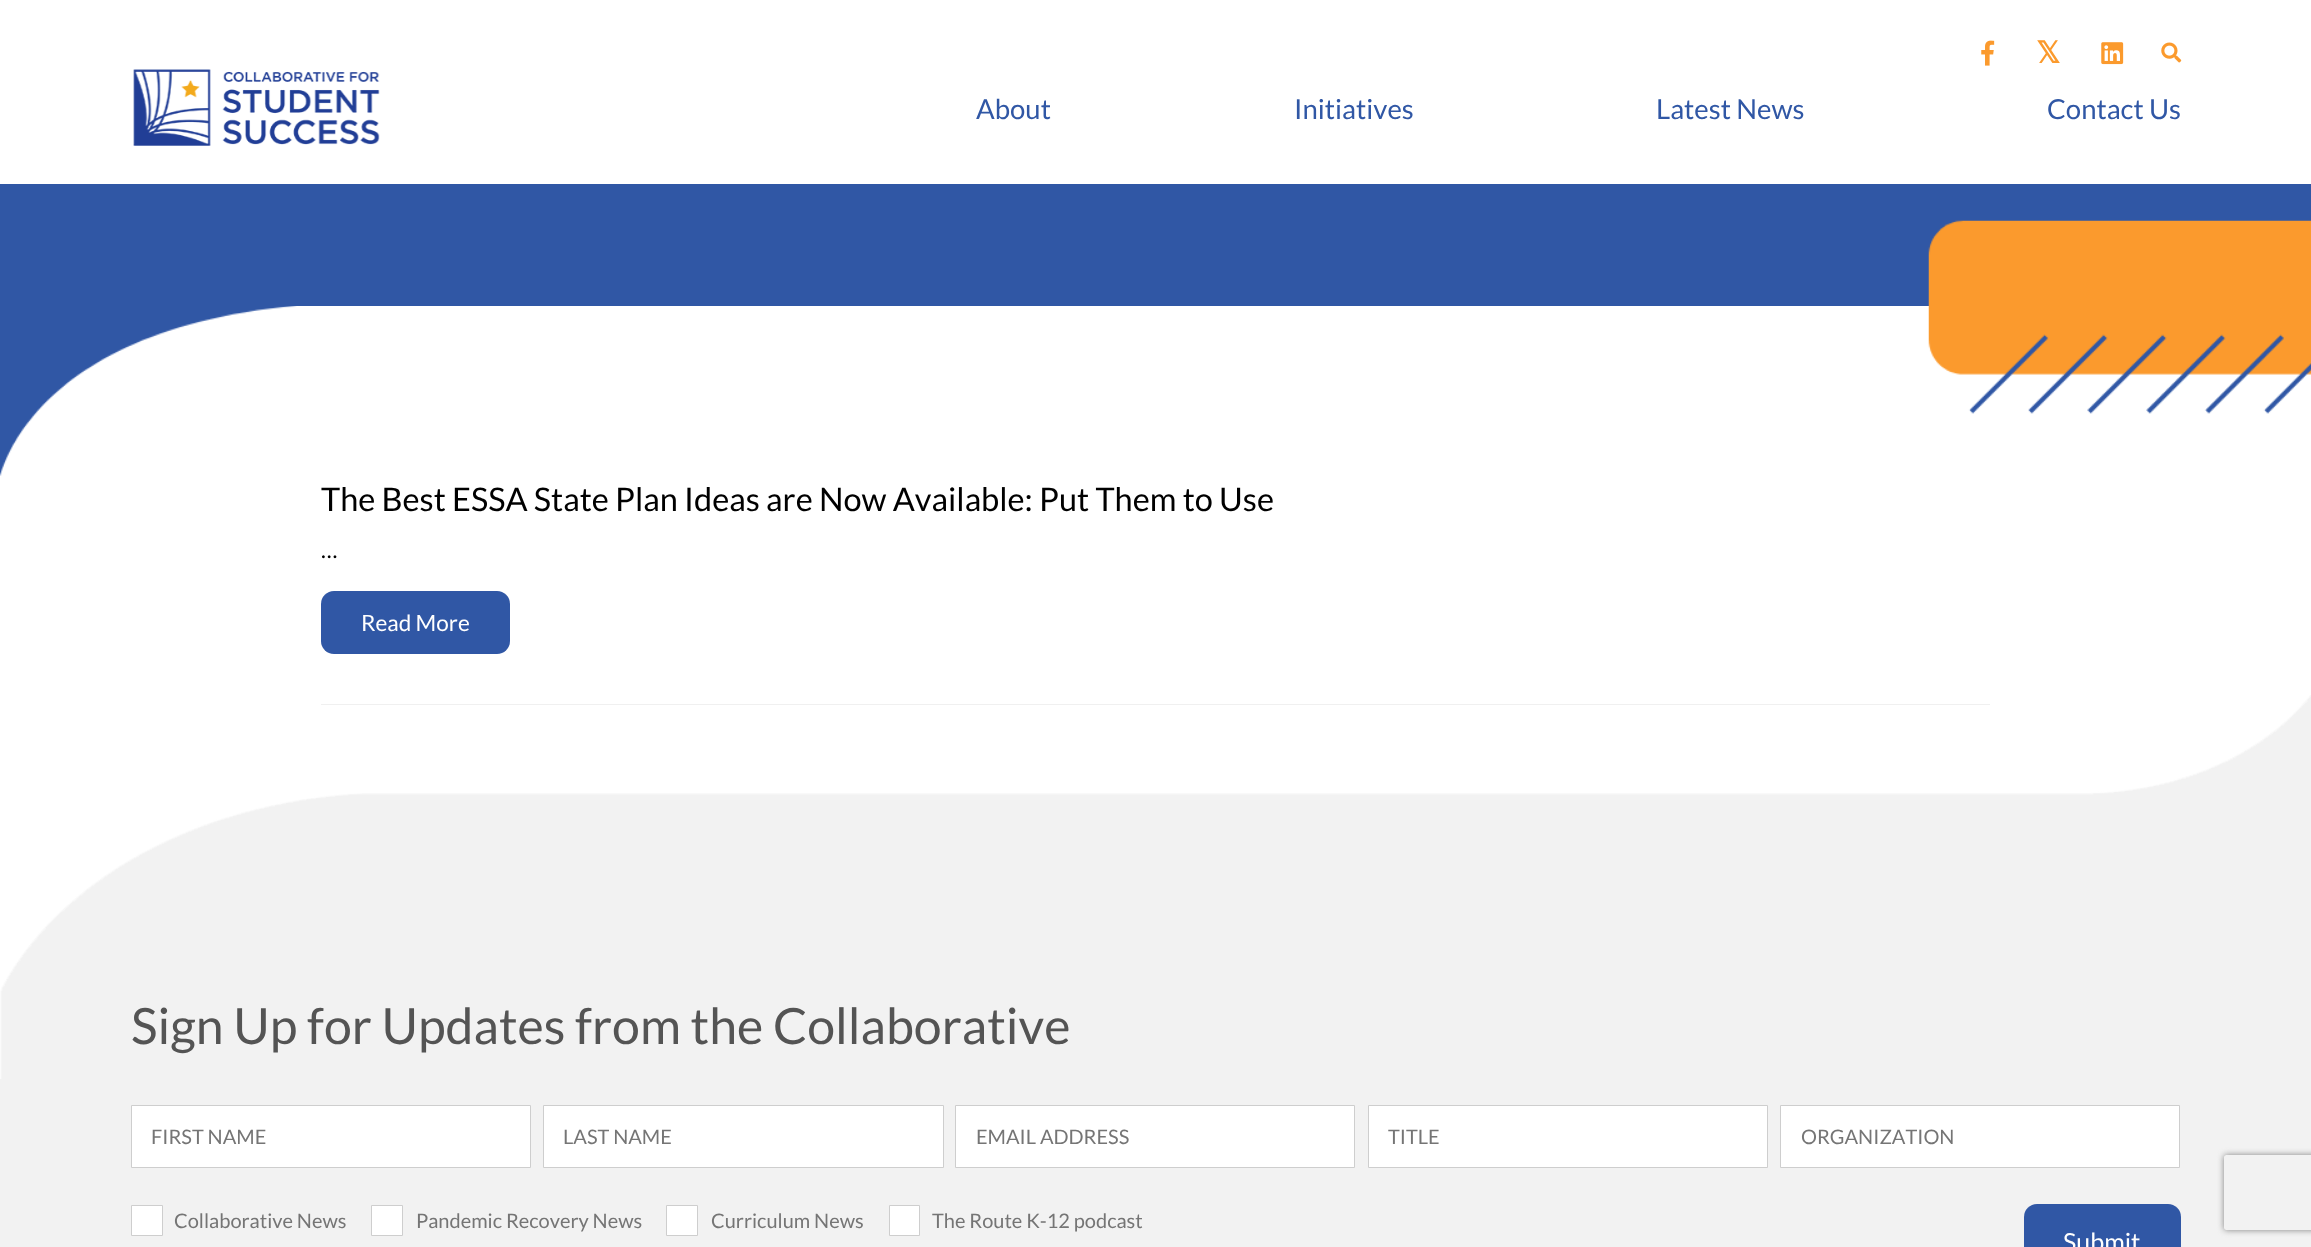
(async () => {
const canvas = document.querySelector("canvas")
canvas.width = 2311
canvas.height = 1247
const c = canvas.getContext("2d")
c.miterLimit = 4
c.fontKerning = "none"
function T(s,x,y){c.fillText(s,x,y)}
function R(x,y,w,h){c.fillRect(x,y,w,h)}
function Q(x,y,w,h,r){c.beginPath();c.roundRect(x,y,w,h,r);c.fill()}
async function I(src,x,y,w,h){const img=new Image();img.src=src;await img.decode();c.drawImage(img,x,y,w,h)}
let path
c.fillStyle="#fff"
R(0,0,2311,1247)
await I("1.png",1981,40,14,26)
c.font="bold 30px DejaVu Sans"
c.fillStyle="#fb9a2d"
T("𝕏",2036,63)
await I("2.png",2101,42,23,23)
await I("3.png",2161,42,21,21)
await I("4.png",133,69,247,77)
c.font="27.5px Lato"
c.fillStyle="#3057a5"
T("About",976,119)
T("Initiatives",1294,119)
T("Latest News",1656,119)
T("Contact Us",2047,119)
R(0,184,2311,122)
await I("5.png",0,306,297,170)
await I("6.png",1928,220,383,194)
c.fillStyle="#f0f0f0"
R(321,704,1669,1)
c.font="32.5px Lato"
c.fillStyle="#000"
T("The Best ESSA State Plan Ideas are Now Available: Put Them to Use",321,511)
c.font="22.5px Lato"
T("…",321,558)
c.fillStyle="#3057a5"
Q(321,591,189,63,13)
c.fillStyle="#fff"
T("Read More",361,631)
await I("7.png",0,695,2311,384)
c.font="50px Lato"
c.fillStyle="#545454"
T("Sign Up for Updates from the Collaborative",131,1044)
c.fillStyle="#f2f2f2"
R(0,1079,2311,168)
c.fillStyle="#fff"
c.beginPath()
c.rect(131.5,1105.5,399,62)
c.fill()
c.strokeStyle="#cecece"
c.stroke()
c.font="20px Lato"
c.fillStyle="#757575"
T("FIRST NAME",151,1144)
c.fillStyle="#fff"
c.beginPath()
c.rect(543.5,1105.5,400,62)
c.fill()
c.stroke()
c.fillStyle="#757575"
T("LAST NAME",563,1144)
c.fillStyle="#fff"
c.beginPath()
c.rect(955.5,1105.5,399,62)
c.fill()
c.stroke()
c.fillStyle="#757575"
T("EMAIL ADDRESS",976,1144)
c.fillStyle="#fff"
c.beginPath()
c.rect(1368.5,1105.5,399,62)
c.fill()
c.stroke()
c.fillStyle="#757575"
T("TITLE",1388,1144)
c.fillStyle="#fff"
c.beginPath()
c.rect(1780.5,1105.5,399,62)
c.fill()
c.stroke()
c.fillStyle="#757575"
T("ORGANIZATION",1801,1144)
c.fillStyle="#fff"
c.beginPath()
c.rect(131.5,1205.5,31,30)
c.fill()
c.stroke()
c.fillStyle="#757575"
T("Collaborative News",174,1228)
c.fillStyle="#fff"
c.beginPath()
c.rect(371.5,1205.5,31,30)
c.fill()
c.stroke()
c.fillStyle="#757575"
T("Pandemic Recovery News",416,1228)
c.fillStyle="#fff"
c.beginPath()
c.rect(666.5,1205.5,31,30)
c.fill()
c.stroke()
c.fillStyle="#757575"
T("Curriculum News",711,1228)
c.fillStyle="#fff"
c.beginPath()
c.rect(889.5,1205.5,30,30)
c.fill()
c.stroke()
c.fillStyle="#757575"
T("The Route K-12 podcast",932,1228)
c.fillStyle="#3057a5"
Q(2024,1204,157,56,13)
c.font="25px Lato"
c.fillStyle="#fff"
T("Submit",2063,1251)
c.save()
path = new Path2D("M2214 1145h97v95h-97zm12.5 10h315c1.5 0 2.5 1 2.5 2.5v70c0 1.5-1 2.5-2.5 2.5h-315c-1.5 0-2.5-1-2.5-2.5v-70c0-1.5 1-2.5 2.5-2.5z")
c.clip(path,"evenodd")
c.fillStyle="#808080"
c.filter="blur(3px)"
c.beginPath()
c.roundRect(2224,1155,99,75,2.5)
c.fill()
c.filter="none"
c.restore()
})()
